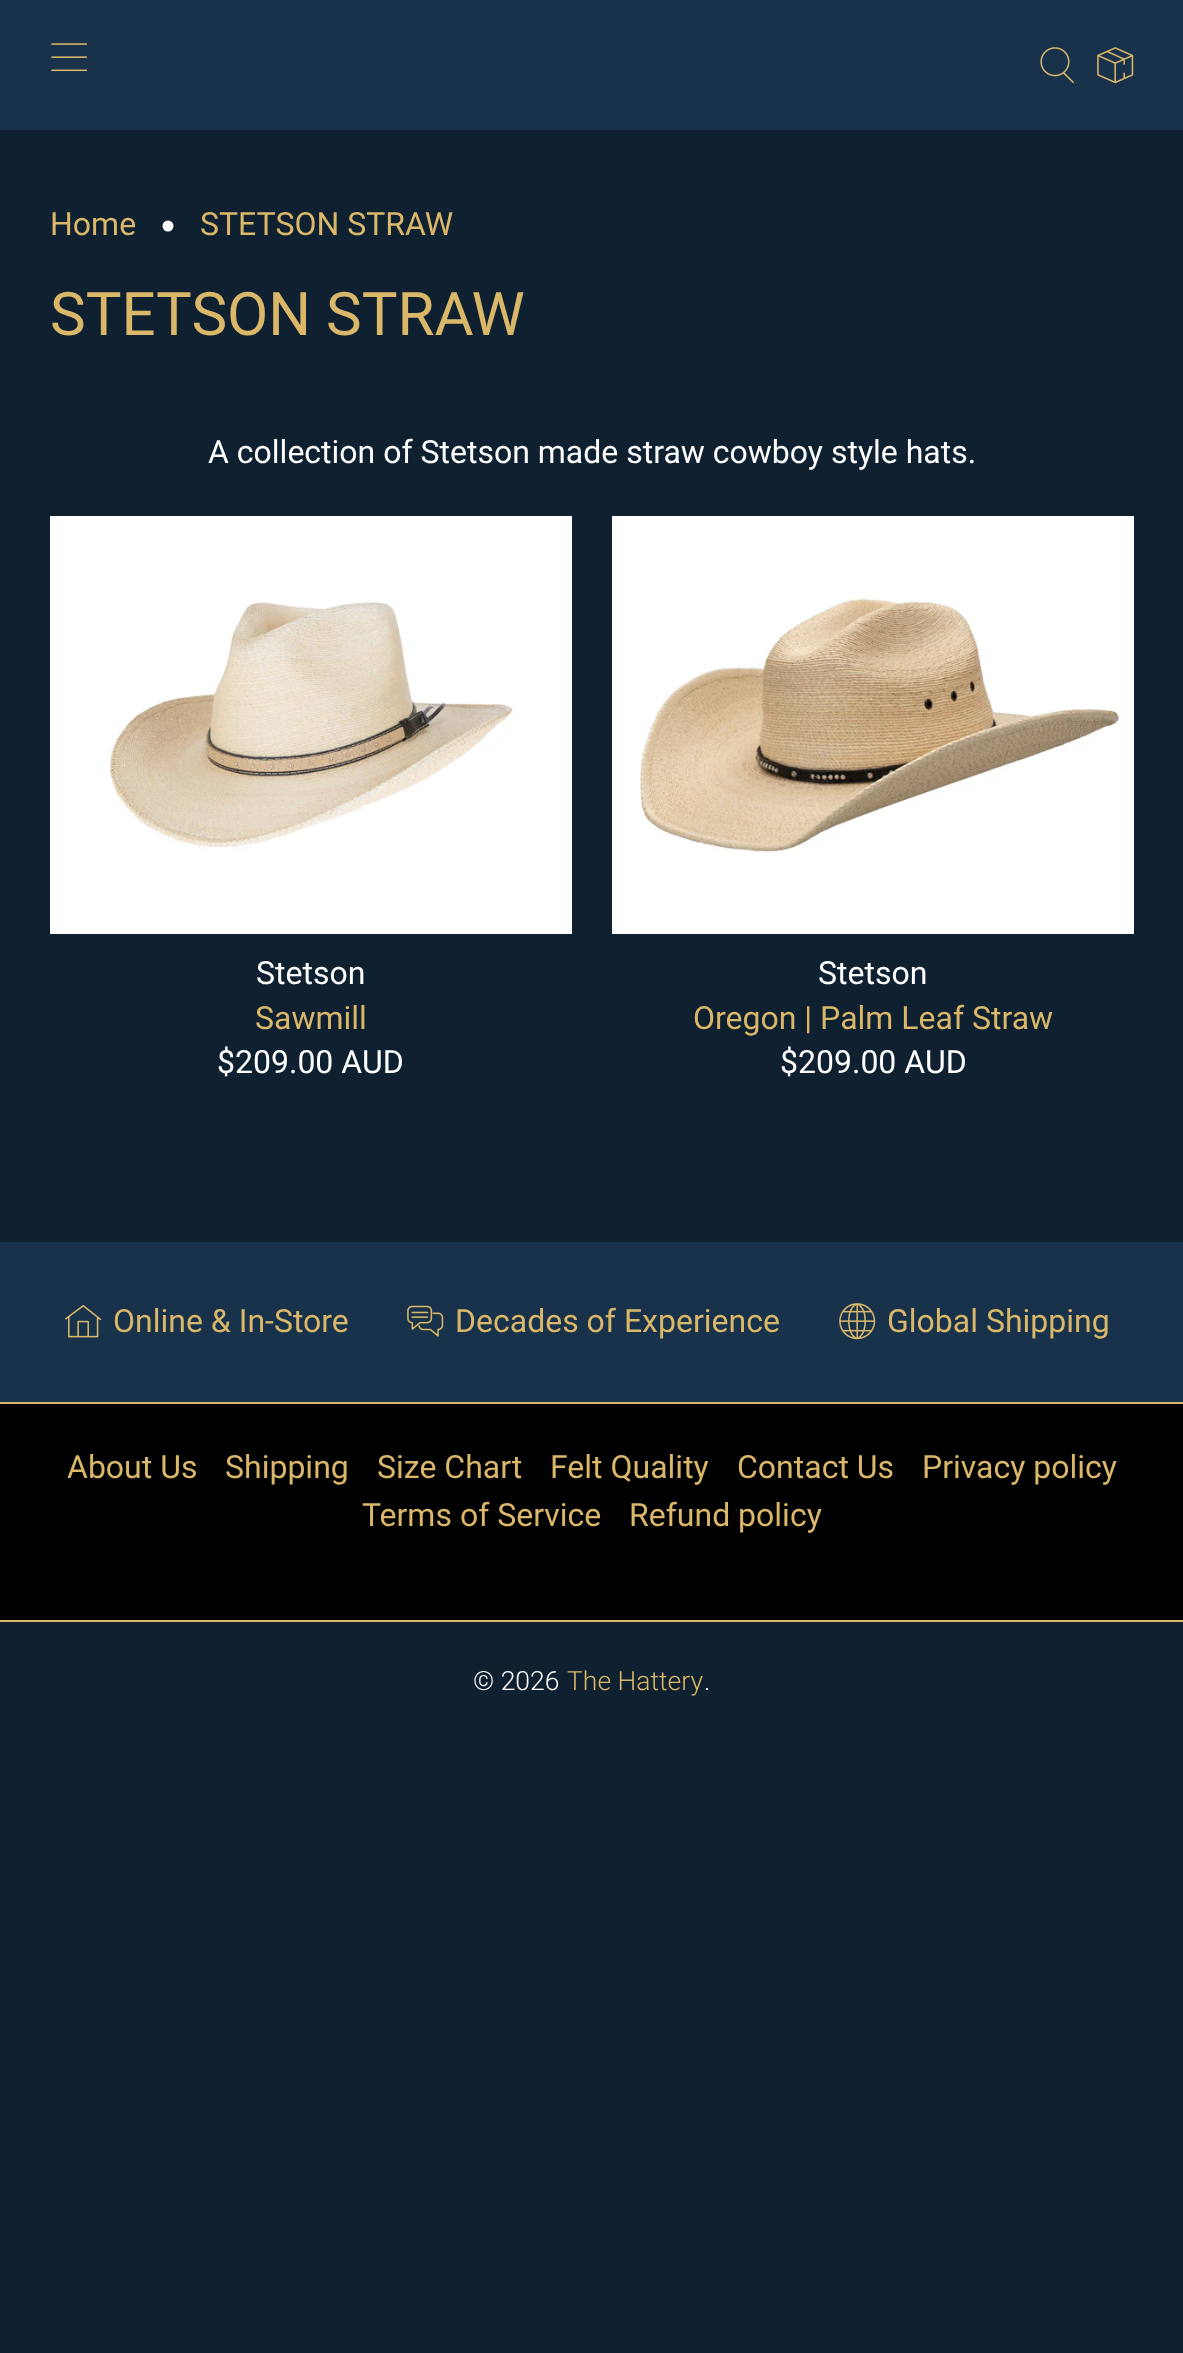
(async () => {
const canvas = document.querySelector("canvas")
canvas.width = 1183
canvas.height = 2353
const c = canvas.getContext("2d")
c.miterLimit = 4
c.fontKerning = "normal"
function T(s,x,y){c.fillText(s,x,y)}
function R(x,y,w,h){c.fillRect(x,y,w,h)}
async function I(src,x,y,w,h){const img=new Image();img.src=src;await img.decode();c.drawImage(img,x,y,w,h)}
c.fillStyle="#0f2131"
R(0,0,1183,2353)
c.fillStyle="#17324a"
R(0,0,1183,130)
await I("1.png",51,43,37,29)
await I("2.png",1040,47,34,37)
await I("3.png",1097,47,37,37)
c.font="32px Roboto"
c.fillStyle="#dab769"
T("Home",50,235)
c.fillStyle="#fff"
c.beginPath()
c.arc(168,226,5.5,0,7)
c.fill()
c.fillStyle="#dab769"
T("STETSON STRAW",200,235)
c.font="60px Roboto"
T("STETSON STRAW",50,335)
c.font="32px Roboto"
c.fillStyle="#fff"
T("A collection of Stetson made straw cowboy style hats.",208,463)
await I("4.png",50,516,522,418)
T("Stetson",256,984)
c.fillStyle="#dab769"
T("Sawmill",255,1029)
c.fillStyle="#fff"
T("$209.00 AUD",217,1073)
await I("5.png",612,516,522,418)
T("Stetson",818,984)
c.fillStyle="#dab769"
T("Oregon | Palm Leaf Straw",693,1029)
c.fillStyle="#fff"
T("$209.00 AUD",780,1073)
c.fillStyle="#17324a"
R(0,1242,1183,160)
await I("6.png",65,1305,37,33)
c.fillStyle="#dab769"
T("Online & In-Store",113,1332)
await I("7.png",407,1305,37,32)
T("Decades of Experience",455,1332)
await I("8.png",839,1303,37,37)
T("Global Shipping",887,1332)
c.fillStyle="#000"
R(0,1404,1183,216)
c.fillStyle="#dab769"
R(0,1402,1183,2)
R(0,1620,1183,2)
T("About Us",67,1478)
T("Shipping",225,1478)
T("Size Chart",377,1478)
T("Felt Quality",550,1478)
T("Contact Us",737,1478)
T("Privacy policy",922,1478)
T("Terms of Service",362,1526)
T("Refund policy",629,1526)
c.font="300 26.5px Roboto"
c.fillStyle="#fff"
T("© 2026",473,1690)
c.fillStyle="#dab769"
T("The Hattery",567,1690)
c.fillStyle="#fff"
T(".",704,1690)
})()
